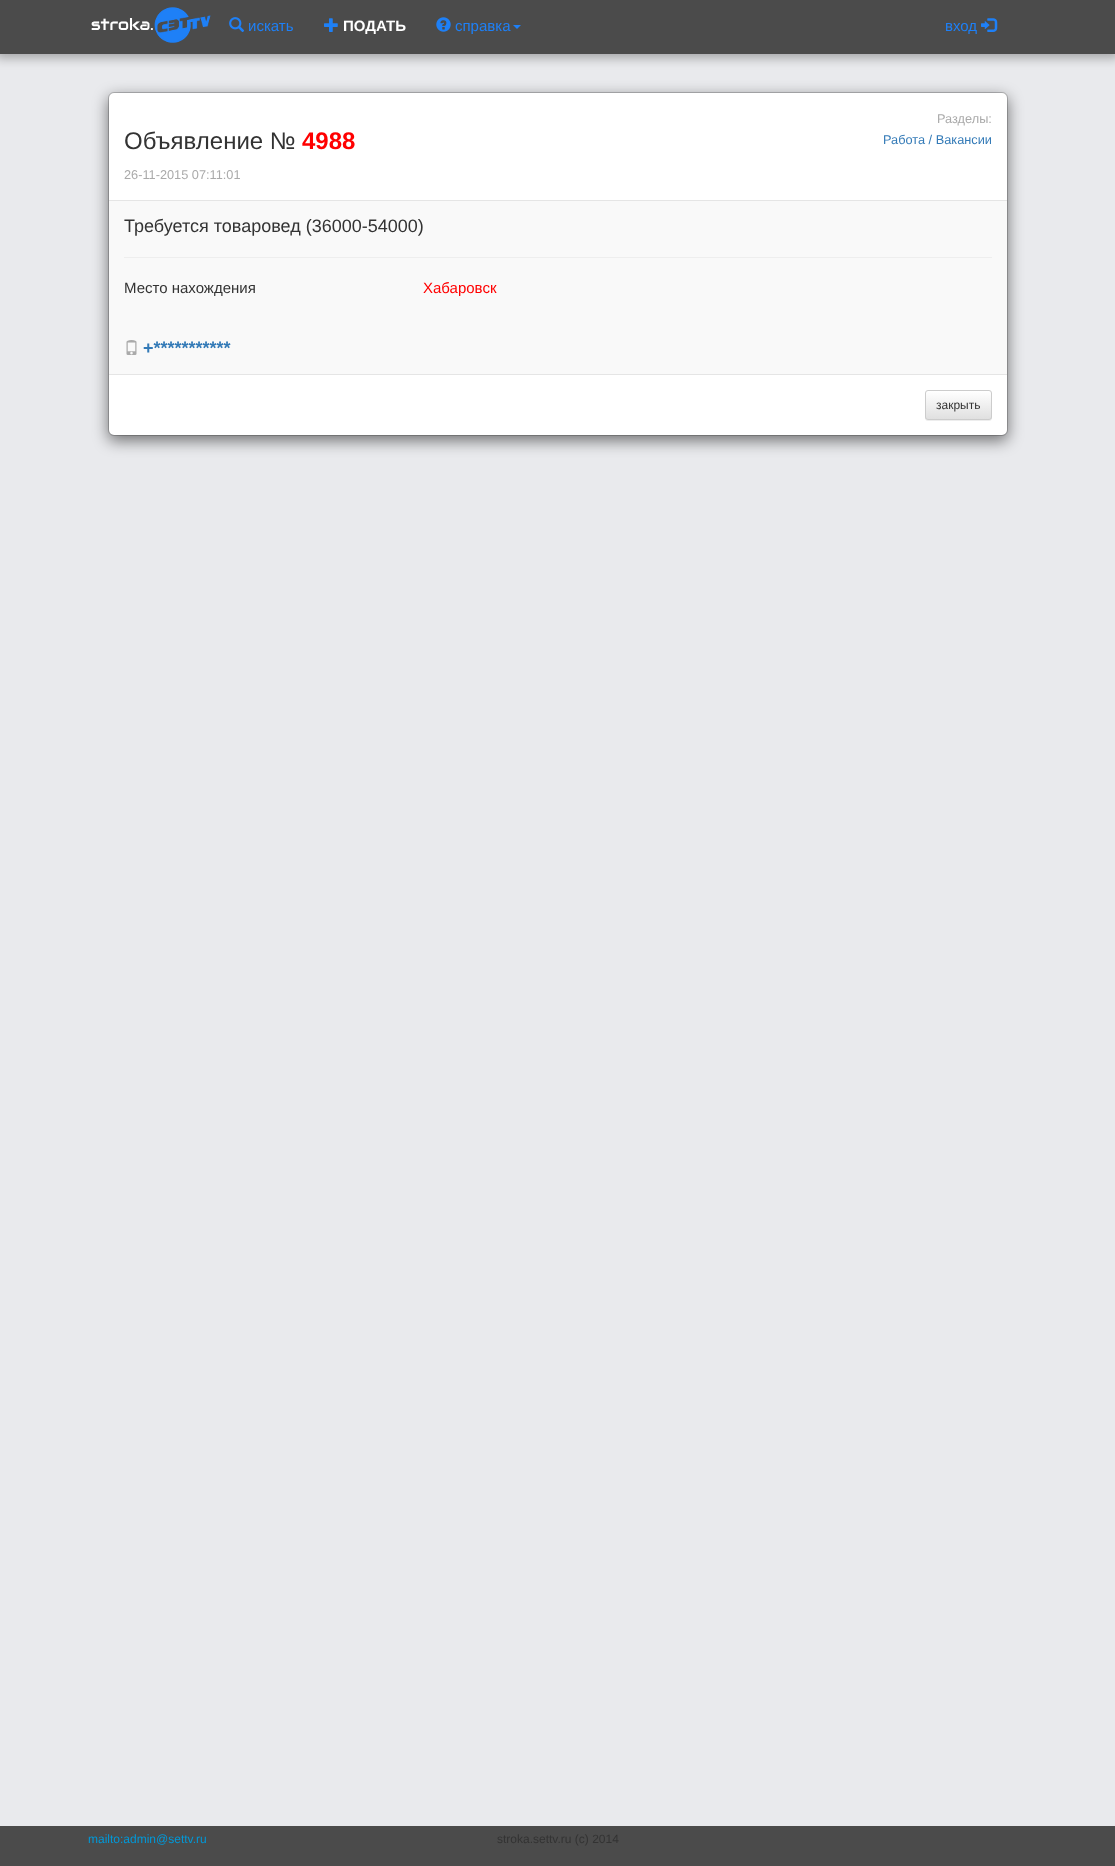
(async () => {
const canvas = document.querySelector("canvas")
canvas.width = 1115
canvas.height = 1866
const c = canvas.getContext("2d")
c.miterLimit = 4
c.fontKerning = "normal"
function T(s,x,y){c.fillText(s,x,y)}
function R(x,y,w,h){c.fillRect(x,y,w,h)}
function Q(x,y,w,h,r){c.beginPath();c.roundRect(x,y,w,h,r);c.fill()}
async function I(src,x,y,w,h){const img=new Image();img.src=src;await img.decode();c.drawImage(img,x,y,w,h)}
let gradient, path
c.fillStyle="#e9eaed"
R(0,0,1115,1866)
c.fillStyle="#0000004d"
c.filter="blur(5.5px)"
c.beginPath()
c.rect(-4,-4,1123,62)
c.fill()
c.filter="none"
c.fillStyle="#4b4b4b"
R(0,0,1115,54)
c.font="16px Audiowide"
c.fillStyle="#fff"
T("stroka.",91,30)
await I("1.png",154,7,57,36)
await I("2.png",229,17,16,15)
c.font="15px Liberation Sans"
c.fillStyle="#1e80f7"
T("искать",248,31)
await I("3.png",324,18,14,14)
c.font="bold 15px Liberation Sans"
c.fillStyle="#fff"
T("ПОДАТЬ",343,31)
await I("4.png",436,17,15,15)
c.font="15px Liberation Sans"
c.fillStyle="#1e80f7"
T("справка",455,31)
path = new Path2D("M513 25h8l-4 4z")
c.fill(path)
T("вход",945,31)
await I("5.png",981,18,17,14)
c.fillStyle="#00000080"
c.filter="blur(7.5px)"
c.beginPath()
c.roundRect(108,97,900,344,6)
c.fill()
c.filter="none"
c.fillStyle="#fff"
Q(109,93,898,342,5)
c.beginPath()
c.roundRect(108.5,92.5,899,343,5.5)
c.strokeStyle="#00000033"
c.stroke()
c.fillStyle="#e5e5e5"
R(109,200,898,1)
c.font="24px Liberation Sans"
c.fillStyle="#333"
T("Объявление №",124,149)
c.font="bold 24px Liberation Sans"
c.fillStyle="#f00"
T("4988",302,149)
c.font="12.75px Liberation Sans"
c.fillStyle="#aaa"
T("26-11-2015 07:11:01",124,179)
T("Разделы:",937,123)
c.fillStyle="#337ab7"
T("Работа / Вакансии",883,144)
c.fillStyle="#f9f9f9"
R(109,201,898,173)
c.font="18px Liberation Sans"
c.fillStyle="#333"
T("Требуется товаровед (36000-54000)",124,232)
c.fillStyle="#eee"
R(124,257,868,1)
c.font="15px Liberation Sans"
c.fillStyle="#333"
T("Место нахождения",124,293)
c.fillStyle="#f00"
T("Хабаровск",423,293)
await I("6.png",126,340,11,15)
c.font="bold 18px Liberation Sans"
c.fillStyle="#337ab7"
T("+***********",143,354)
c.fillStyle="#e5e5e5"
R(109,374,898,1)
c.fillStyle="#00000012"
c.filter="blur(0.5px)"
c.beginPath()
c.roundRect(925,391,67,30,3)
c.fill()
c.filter="none"
c.save()
c.beginPath()
c.roundRect(925,390,67,30,3)
c.clip()
gradient = c.createLinearGradient(959,391,959,419)
gradient.addColorStop(0,"#fff")
gradient.addColorStop(1,"#e0e0e0")
c.fillStyle = gradient
R(925,391,67,28)
c.restore()
c.beginPath()
c.roundRect(925.5,390.5,66,29,2.5)
c.strokeStyle="#ccc"
c.stroke()
c.font="12px Liberation Sans"
c.fillStyle="#333"
T("закрыть",936,409)
c.fillStyle="#4b4b4b"
R(0,1826,1115,40)
c.fillStyle="#0199d9"
T("mailto:admin@settv.ru",88,1843)
c.fillStyle="#333"
T("stroka.settv.ru (c) 2014",497,1843)
})()
